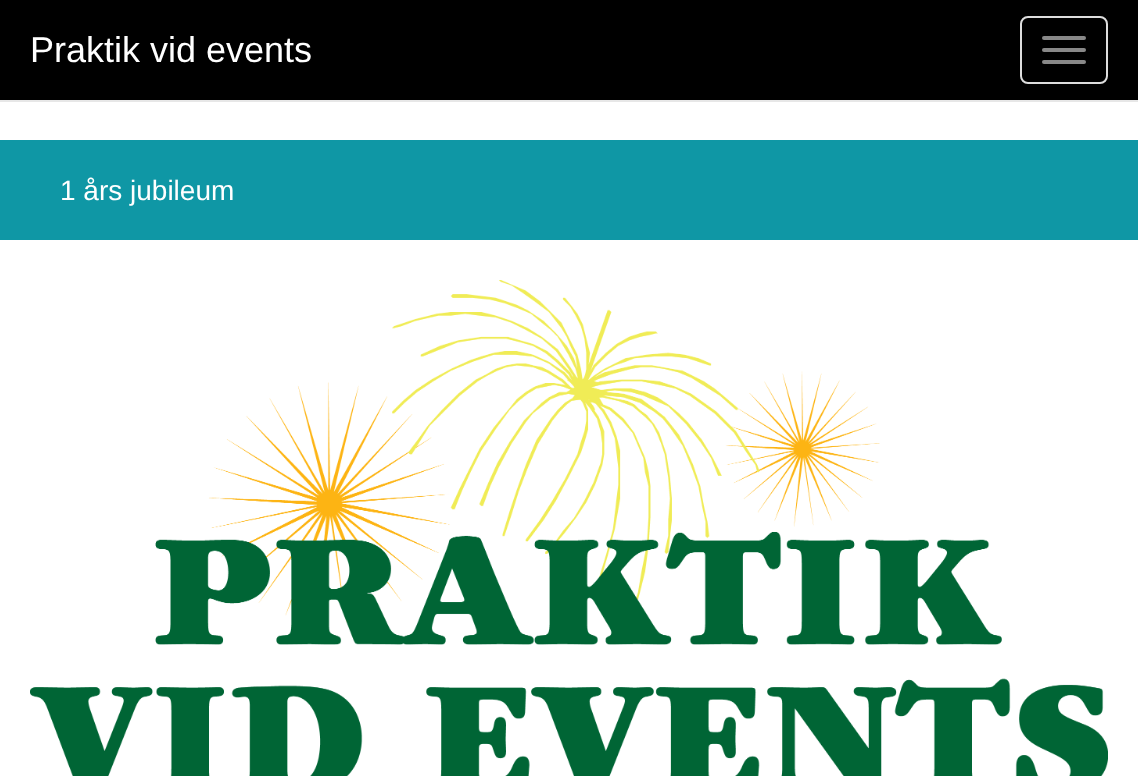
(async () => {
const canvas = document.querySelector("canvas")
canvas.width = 1138
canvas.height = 776
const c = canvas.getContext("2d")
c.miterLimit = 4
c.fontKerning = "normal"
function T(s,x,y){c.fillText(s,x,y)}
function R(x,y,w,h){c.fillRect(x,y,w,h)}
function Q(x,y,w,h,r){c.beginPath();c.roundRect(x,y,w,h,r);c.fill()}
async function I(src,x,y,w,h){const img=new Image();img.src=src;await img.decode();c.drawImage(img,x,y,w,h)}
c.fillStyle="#fff"
R(0,0,1138,776)
c.fillStyle="#000"
R(0,0,1138,100)
c.fillStyle="#e7e7e7"
R(0,100,1138,2)
c.font="36px Liberation Sans"
c.fillStyle="#fff"
T("Praktik vid events",30,62)
c.beginPath()
c.roundRect(1021,17,86,66,7)
c.strokeStyle="#ddd"
c.lineWidth=2
c.stroke()
c.fillStyle="#888"
Q(1042,36,44,4,2)
Q(1042,48,44,4,2)
Q(1042,60,44,4,2)
c.fillStyle="#0f97a5"
R(0,140,1138,100)
c.font="28px Liberation Sans"
c.fillStyle="#fff"
T("1 års jubileum",60,200)
await I("1.png",30,280,1078,496)
})()
